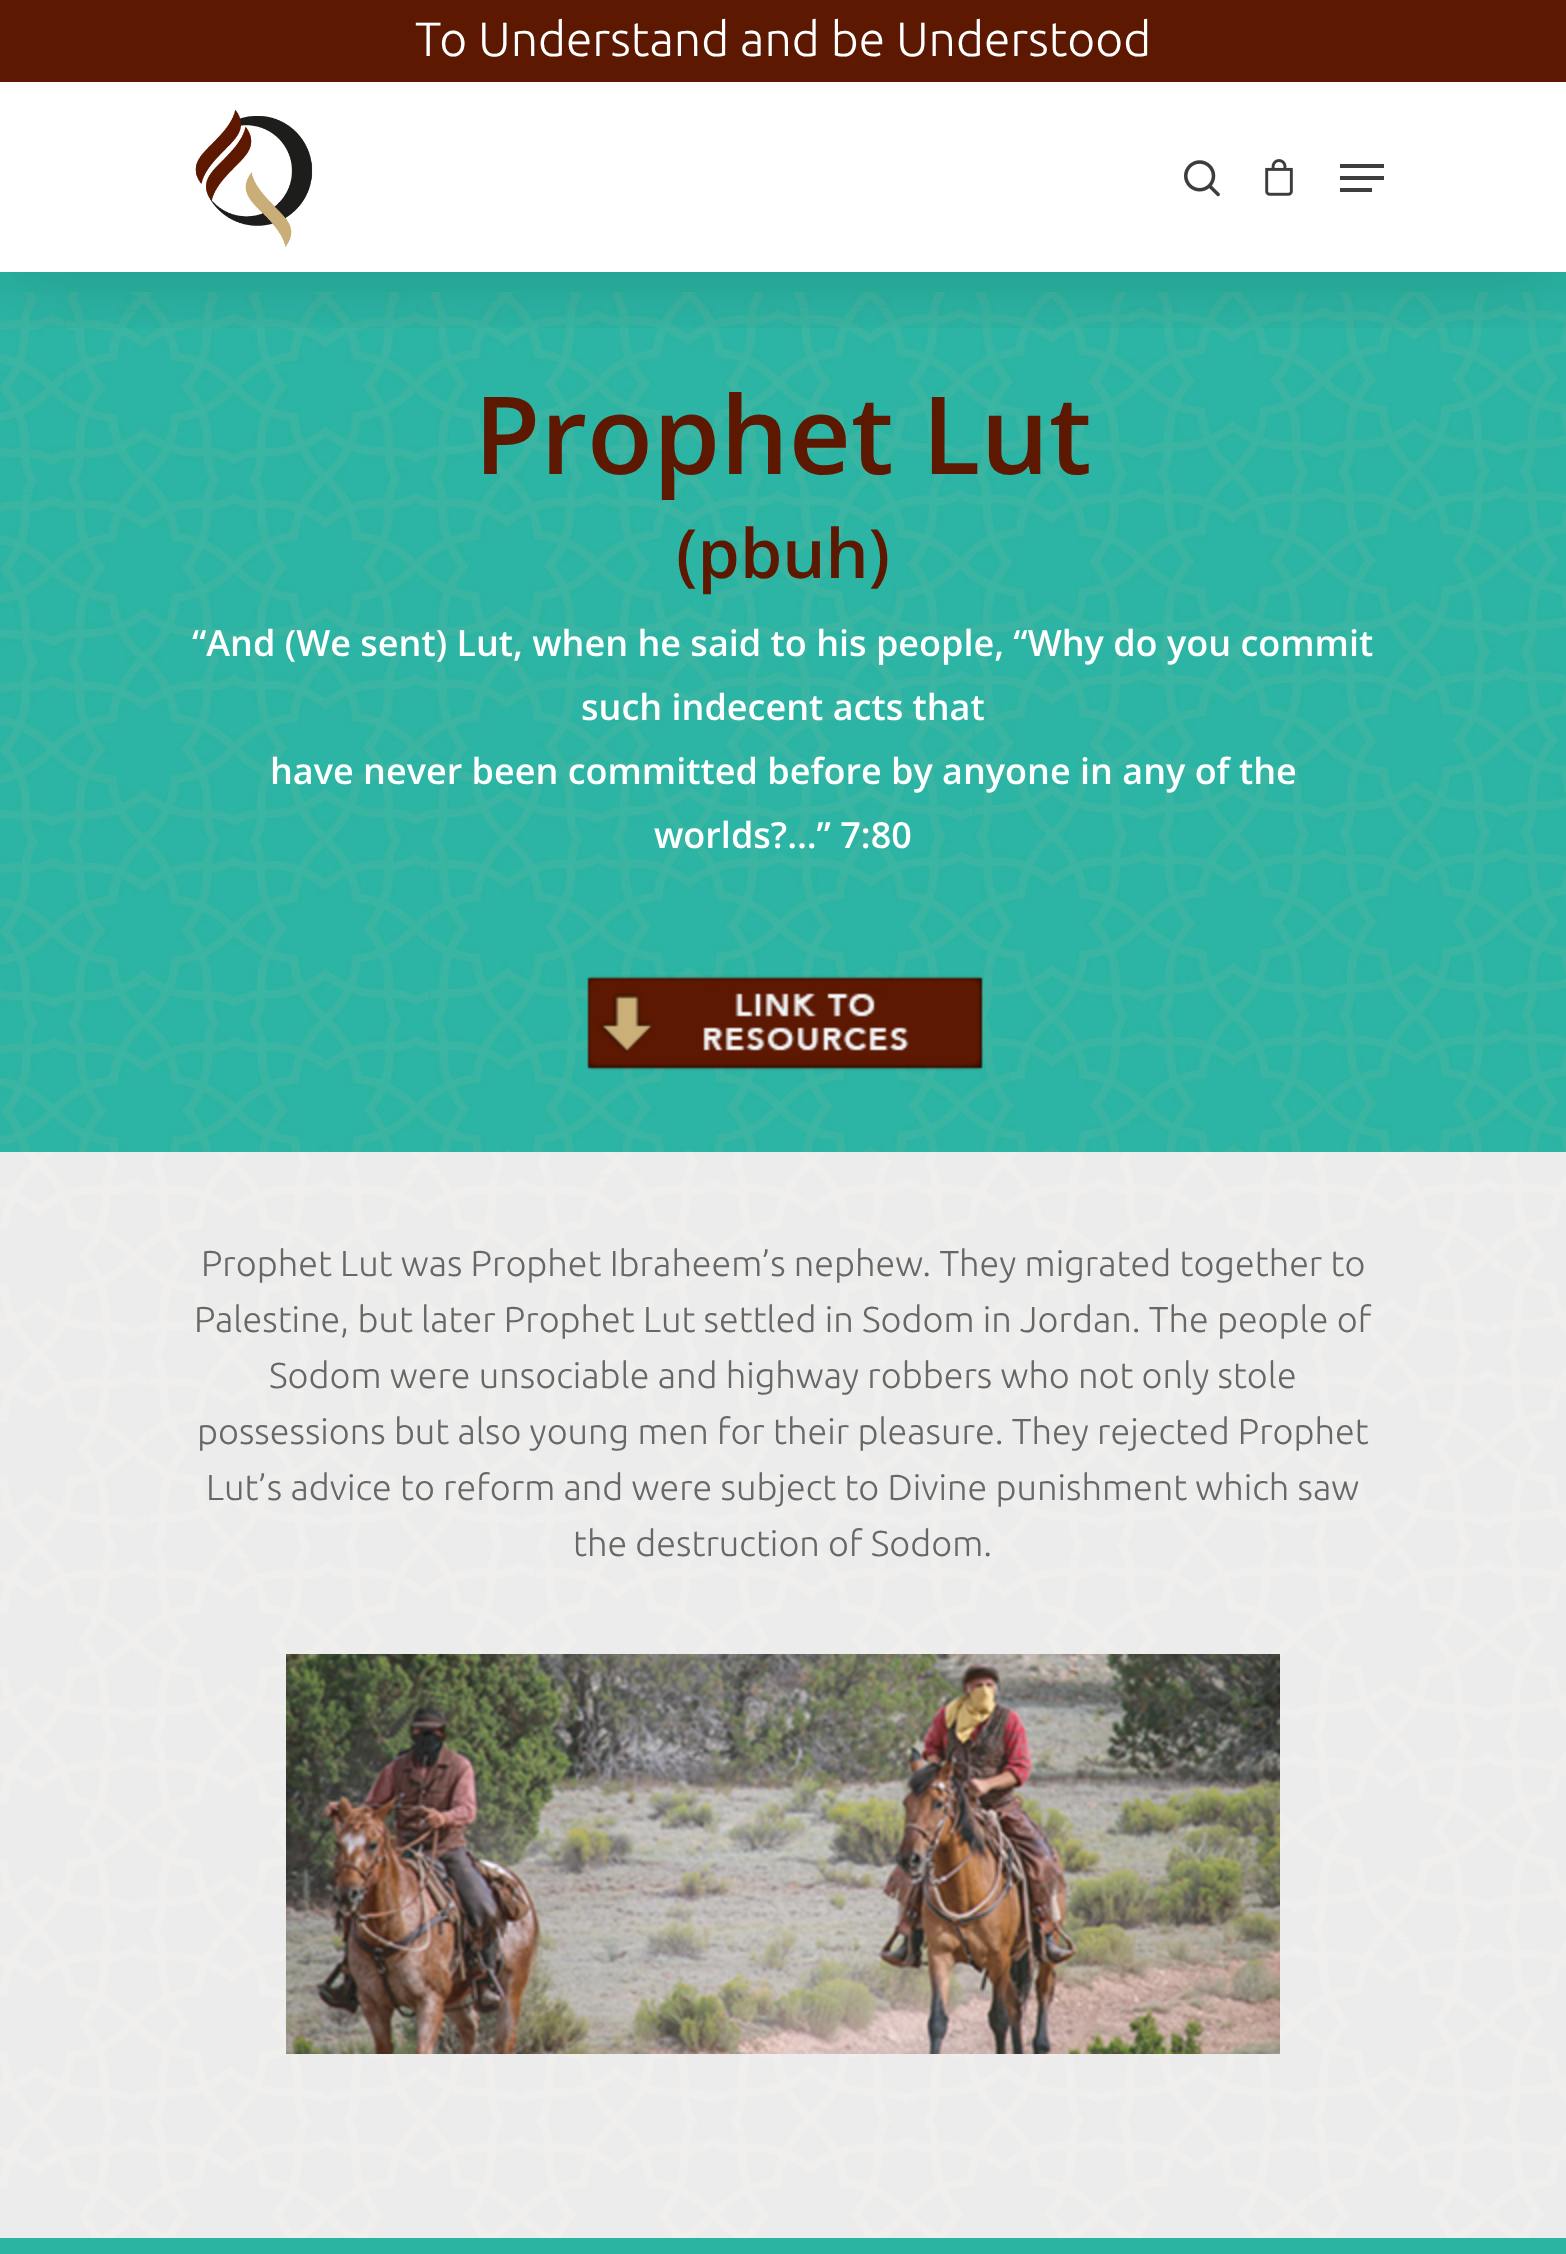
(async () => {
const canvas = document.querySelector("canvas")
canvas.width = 1566
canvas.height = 2254
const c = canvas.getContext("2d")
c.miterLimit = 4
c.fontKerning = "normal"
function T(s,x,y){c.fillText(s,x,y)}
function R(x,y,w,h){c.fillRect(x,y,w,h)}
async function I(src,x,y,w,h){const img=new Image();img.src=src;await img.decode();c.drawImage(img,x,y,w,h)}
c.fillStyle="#fff"
R(0,0,1566,2254)
c.fillStyle="#2ab4a2"
R(0,272,1566,20)
await I("4.png",0,292,1566,860)
c.save()
c.beginPath()
c.rect(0,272,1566,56)
c.clip()
c.fillStyle="#00000026"
c.filter="blur(45px)"
c.beginPath()
c.rect(0,6,1566,272)
c.fill()
c.filter="none"
c.restore()
c.fillStyle="#5c1800"
R(0,0,1566,82)
c.font="300 48px Ubuntu"
c.fillStyle="#fff"
T("To Understand and be Understood",415,56)
await I("1.png",195,109,118,138)
await I("2.png",1184,160,36,37)
await I("3.png",1265,159,28,37)
c.fillStyle="#3d3d3d"
R(1340,164,44,4)
R(1340,188,32,4)
R(1340,176,44,4)
c.font="600 108px Open Sans"
c.fillStyle="#5c1800"
T("Prophet Lut",474,474)
c.font="600 68px Open Sans"
T("(pbuh)",676,578)
c.font="600 36px Open Sans"
c.fillStyle="#fff"
T("“And (We sent) Lut, when he said to his people, “Why do you commit",192,656)
T("such indecent acts that",581,720)
T("have never been committed before by anyone in any of the",270,784)
T("worlds?…” 7:80",654,848)
await I("5.png",587,975,396,96)
await I("6.png",0,1152,1566,1086)
c.font="300 36px Ubuntu"
c.fillStyle="#676767"
T("Prophet Lut was Prophet Ibraheem’s nephew. They migrated together to",201,1276)
T("Palestine, but later Prophet Lut settled in Sodom in Jordan. The people of",194,1332)
T("Sodom were unsociable and highway robbers who not only stole",269,1388)
T("possessions but also young men for their pleasure. They rejected Prophet",197,1444)
T("Lut’s advice to reform and were subject to Divine punishment which saw",206,1500)
T("the destruction of Sodom.",573,1556)
await I("7.png",286,1654,994,400)
c.fillStyle="#2ab4a2"
R(0,2238,1566,16)
})()
